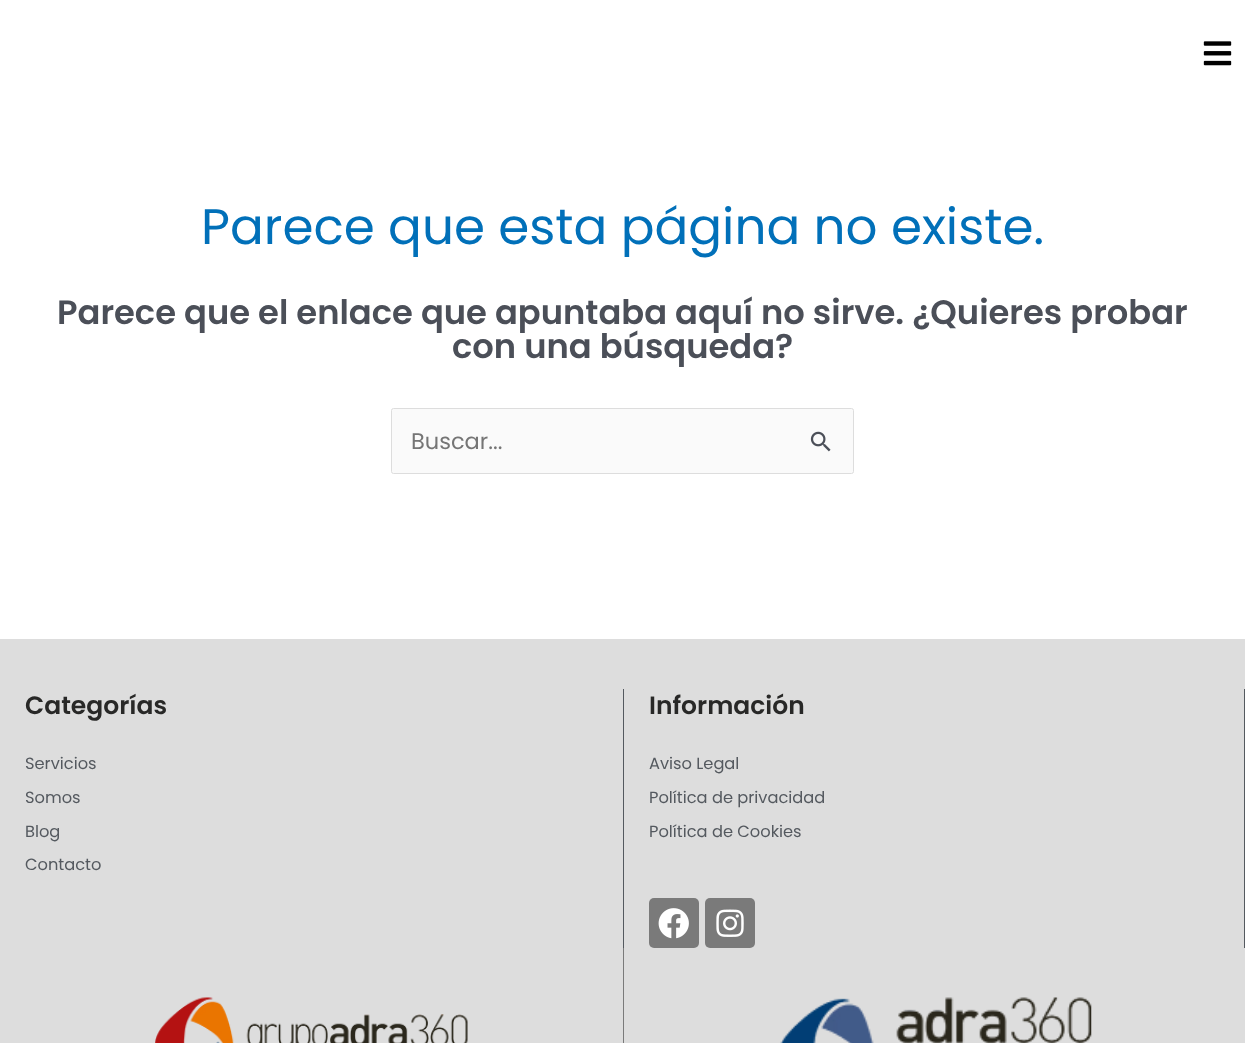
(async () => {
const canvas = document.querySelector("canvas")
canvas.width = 1245
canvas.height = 1043
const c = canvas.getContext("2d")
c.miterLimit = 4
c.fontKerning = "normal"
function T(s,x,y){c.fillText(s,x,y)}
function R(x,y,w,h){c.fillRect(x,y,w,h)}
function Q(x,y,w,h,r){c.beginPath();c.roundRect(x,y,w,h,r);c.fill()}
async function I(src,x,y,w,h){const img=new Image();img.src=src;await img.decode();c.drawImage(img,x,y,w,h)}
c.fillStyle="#fff"
R(0,0,1245,1043)
await I("1.png",1203,41,29,25)
c.font="50px Poppins"
c.fillStyle="#0170b9"
T("Parece que esta página no existe.",201,244)
c.font="600 33.75px Poppins"
c.fillStyle="#4b4f58"
T("Parece que el enlace que apuntaba aquí no sirve. ¿Quieres probar",57,324)
T("con una búsqueda?",452,358)
c.fillStyle="#fafafa"
c.beginPath()
c.roundRect(391.5,408.5,462,65,2)
c.fill()
c.strokeStyle="#ddd"
c.stroke()
c.font="22.5px Poppins"
c.fillStyle="#757575"
T("Buscar...",411,449)
await I("2.png",810,431,21,21)
c.fillStyle="#ddd"
R(0,639,1245,404)
c.font="600 25px Poppins"
c.fillStyle="#282827"
T("Categorías",25,714)
c.font="16.25px Poppins"
c.fillStyle="#54595f"
T("Servicios",25,769)
T("Somos",25,803)
T("Blog",25,837)
T("Contacto",25,870)
R(1244,689,1,259)
R(623,689,1,259)
c.font="600 25px Poppins"
c.fillStyle="#282827"
T("Información",649,714)
c.font="16.25px Poppins"
c.fillStyle="#54595f"
T("Aviso Legal",649,769)
T("Política de privacidad",649,803)
T("Política de Cookies",649,837)
c.fillStyle="#7a7a7a"
Q(649,898,50,50,5)
await I("3.png",658,908,31,31)
Q(705,898,50,50,5)
await I("4.png",716,909,28,28)
await I("5.png",155,997,313,46)
R(623,948,1,95)
await I("6.png",780,997,312,46)
})()
